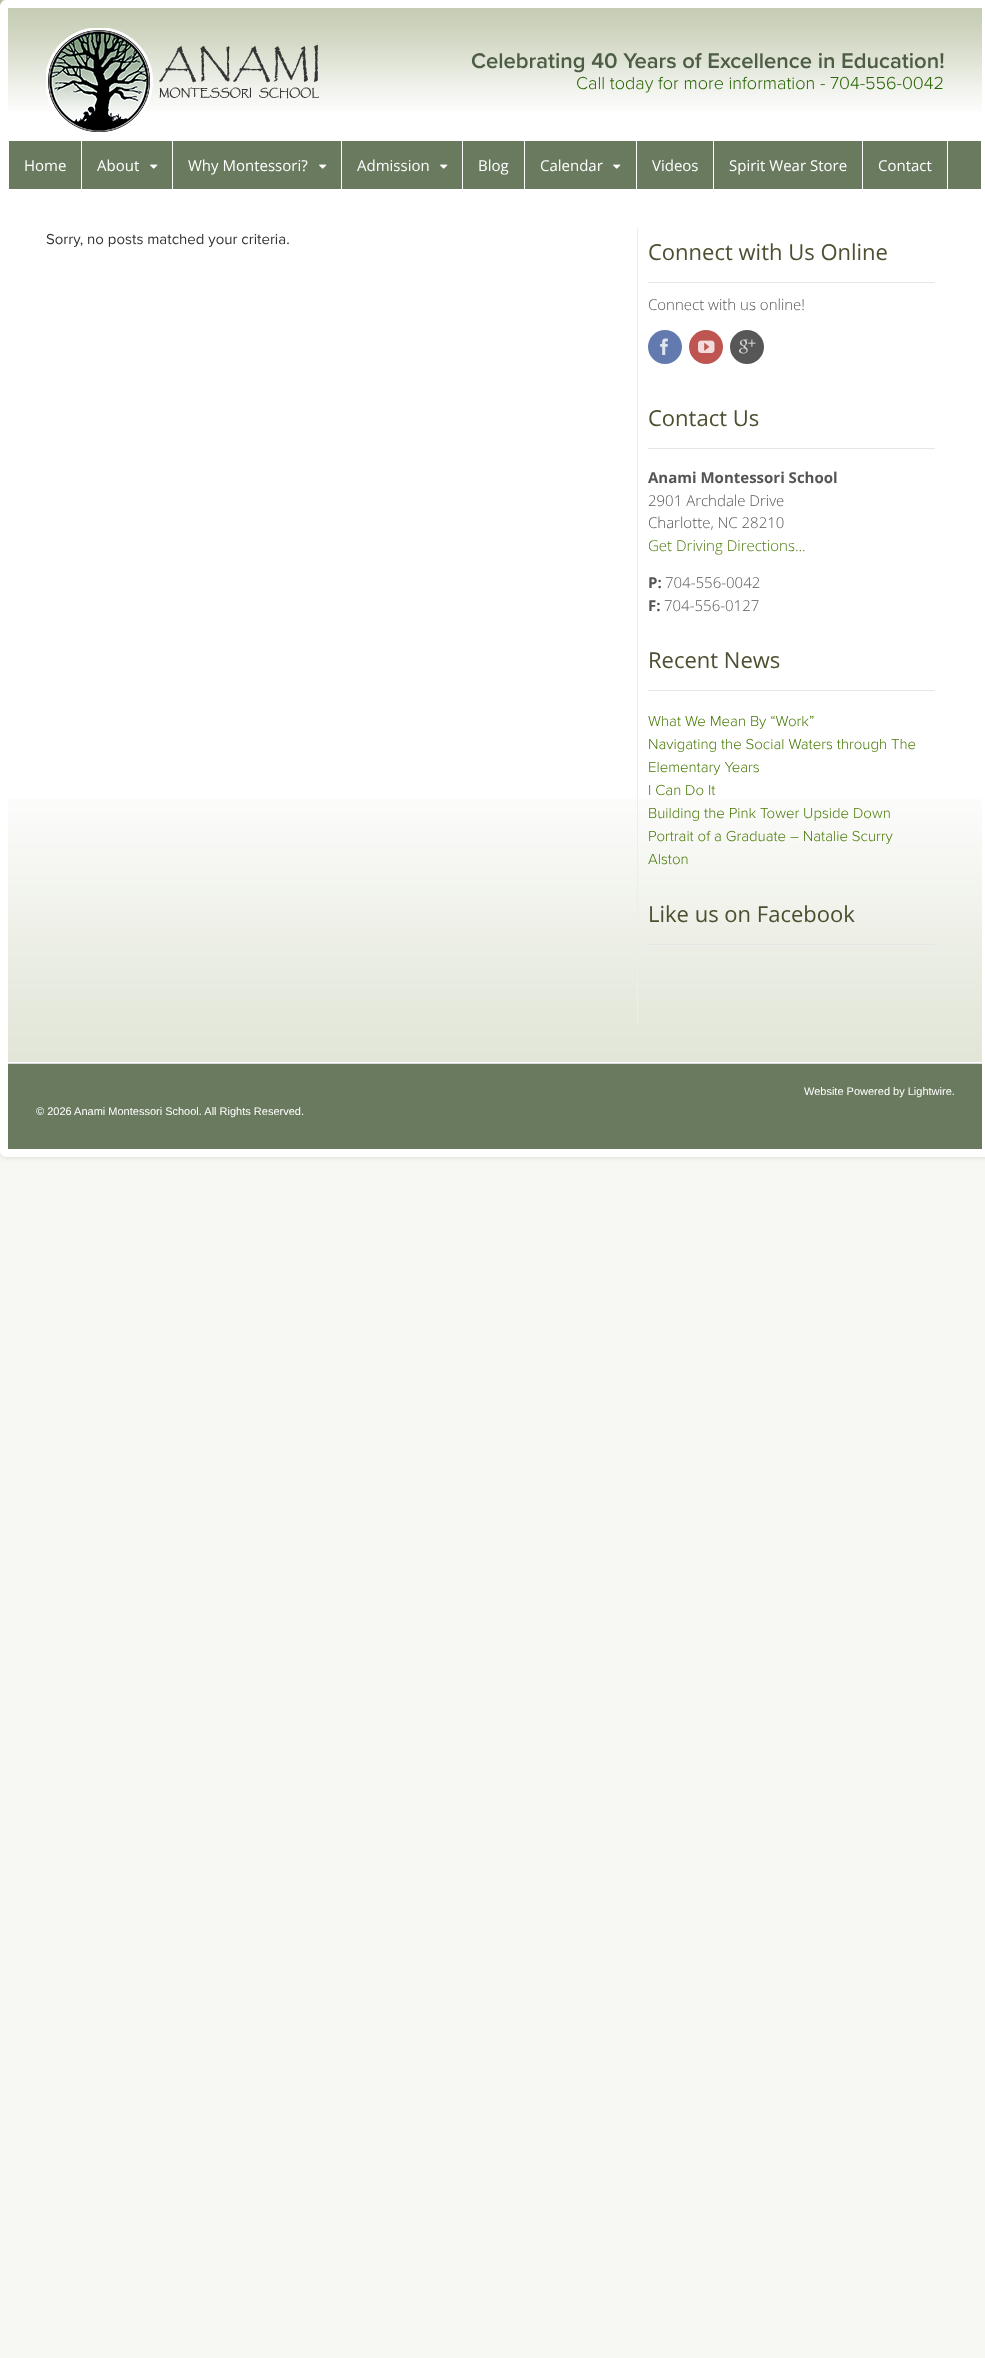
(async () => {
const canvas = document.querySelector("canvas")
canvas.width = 985
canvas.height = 2358
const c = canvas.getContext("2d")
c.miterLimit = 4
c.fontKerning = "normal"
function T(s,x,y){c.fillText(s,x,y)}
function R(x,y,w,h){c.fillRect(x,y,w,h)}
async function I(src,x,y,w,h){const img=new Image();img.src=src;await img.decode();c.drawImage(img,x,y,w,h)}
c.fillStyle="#f7f8f3"
R(0,0,985,2358)
await I("1.png",0,0,985,6)
c.fillStyle="#0000001a"
c.filter="blur(2.5px)"
c.beginPath()
c.roundRect(0,1,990,1157,6)
c.fill()
c.filter="none"
c.fillStyle="#fff"
c.beginPath()
c.roundRect(4,4,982,1149,2)
c.fill()
c.strokeStyle="#fff"
c.lineWidth=8
c.stroke()
await I("2.png",8,8,974,103)
await I("3.png",46,28,274,104)
c.font="600 22px Proxima Nova"
c.fillStyle="#4d5d44"
T("Celebrating 40 Years of Excellence in Education!",471,68)
c.font="300 18px Proxima Nova"
c.fillStyle="#296605"
T("Call today for more information - 704-556-0042",576,89)
c.fillStyle="#697a5f"
R(9,141,972,48)
c.fillStyle="#fff"
R(81,141,1,48)
c.font="15px Open Sans"
T("Home",24,171)
R(172,141,1,48)
T("About",97,171)
await I("4.png",150,164,8,5)
R(341,141,1,48)
T("Why Montessori?",188,171)
await I("4.png",319,164,8,5)
R(462,141,1,48)
T("Admission",357,171)
await I("4.png",440,164,8,5)
R(524,141,1,48)
T("Blog",478,171)
R(636,141,1,48)
T("Calendar",540,171)
await I("4.png",613,164,8,5)
R(713,141,1,48)
T("Videos",652,171)
R(862,141,1,48)
T("Spirit Wear Store",729,171)
R(947,141,1,48)
T("Contact",878,171)
await I("5.png",8,799,974,263)
c.font="15px Proxima Nova"
c.fillStyle="#333"
T("Sorry, no posts matched your criteria.",46,244)
c.fillStyle="#ededed"
R(637,228,1,797)
c.fillStyle="#e6e6e6"
R(648,282,287,1)
c.font="22px Open Sans"
c.fillStyle="#4e4e31"
T("Connect with Us Online",648,260)
c.font="300 15px Open Sans"
c.fillStyle="#555"
T("Connect with us online!",648,310)
c.fillStyle="#627aad"
c.beginPath()
c.arc(665,347,17,0,7)
c.fill()
await I("6.png",660,338,8,17)
c.fillStyle="#bf5551"
c.beginPath()
c.arc(706,347,17,0,7)
c.fill()
await I("7.png",698,340,17,13)
c.fillStyle="#575757"
c.beginPath()
c.arc(747,347,17,0,7)
c.fill()
await I("8.png",739,339,17,15)
c.fillStyle="#e6e6e6"
R(648,448,287,1)
c.font="22px Open Sans"
c.fillStyle="#4e4e31"
T("Contact Us",648,426)
c.font="bold 15px Open Sans"
c.fillStyle="#555"
T("Anami Montessori School",648,483)
c.font="300 15px Open Sans"
T("2901 Archdale Drive",648,506)
T("Charlotte, NC 28210",648,528)
c.fillStyle="#497906"
T("Get Driving Directions...",648,551)
c.font="bold 15px Open Sans"
c.fillStyle="#555"
T("P:",648,588)
c.font="300 15px Open Sans"
T("704-556-0042",665,588)
c.font="bold 15px Open Sans"
T("F:",648,611)
c.font="300 15px Open Sans"
T("704-556-0127",664,611)
c.fillStyle="#e6e6e6"
R(648,690,287,1)
c.font="22px Open Sans"
c.fillStyle="#4e4e31"
T("Recent News",648,668)
c.font="300 15px Proxima Nova"
c.fillStyle="#497906"
T("What We Mean By “Work”",648,726)
T("Navigating the Social Waters through The",648,749)
T("Elementary Years",648,772)
T("I Can Do It",648,795)
T("Building the Pink Tower Upside Down",648,818)
T("Portrait of a Graduate – Natalie Scurry",648,841)
T("Alston",648,864)
c.fillStyle="#e6e6e6"
R(648,944,287,1)
c.font="22px Open Sans"
c.fillStyle="#4e4e31"
T("Like us on Facebook",648,922)
c.fillStyle="#697a5f"
R(8,1064,974,85)
c.fillStyle="#dbdbdb"
R(8,1063,974,1)
c.font="11px Liberation Sans"
c.fillStyle="#fff"
T("Website Powered by Lightwire.",804,1095)
T("© 2026 Anami Montessori School. All Rights Reserved.",36,1115)
})()
